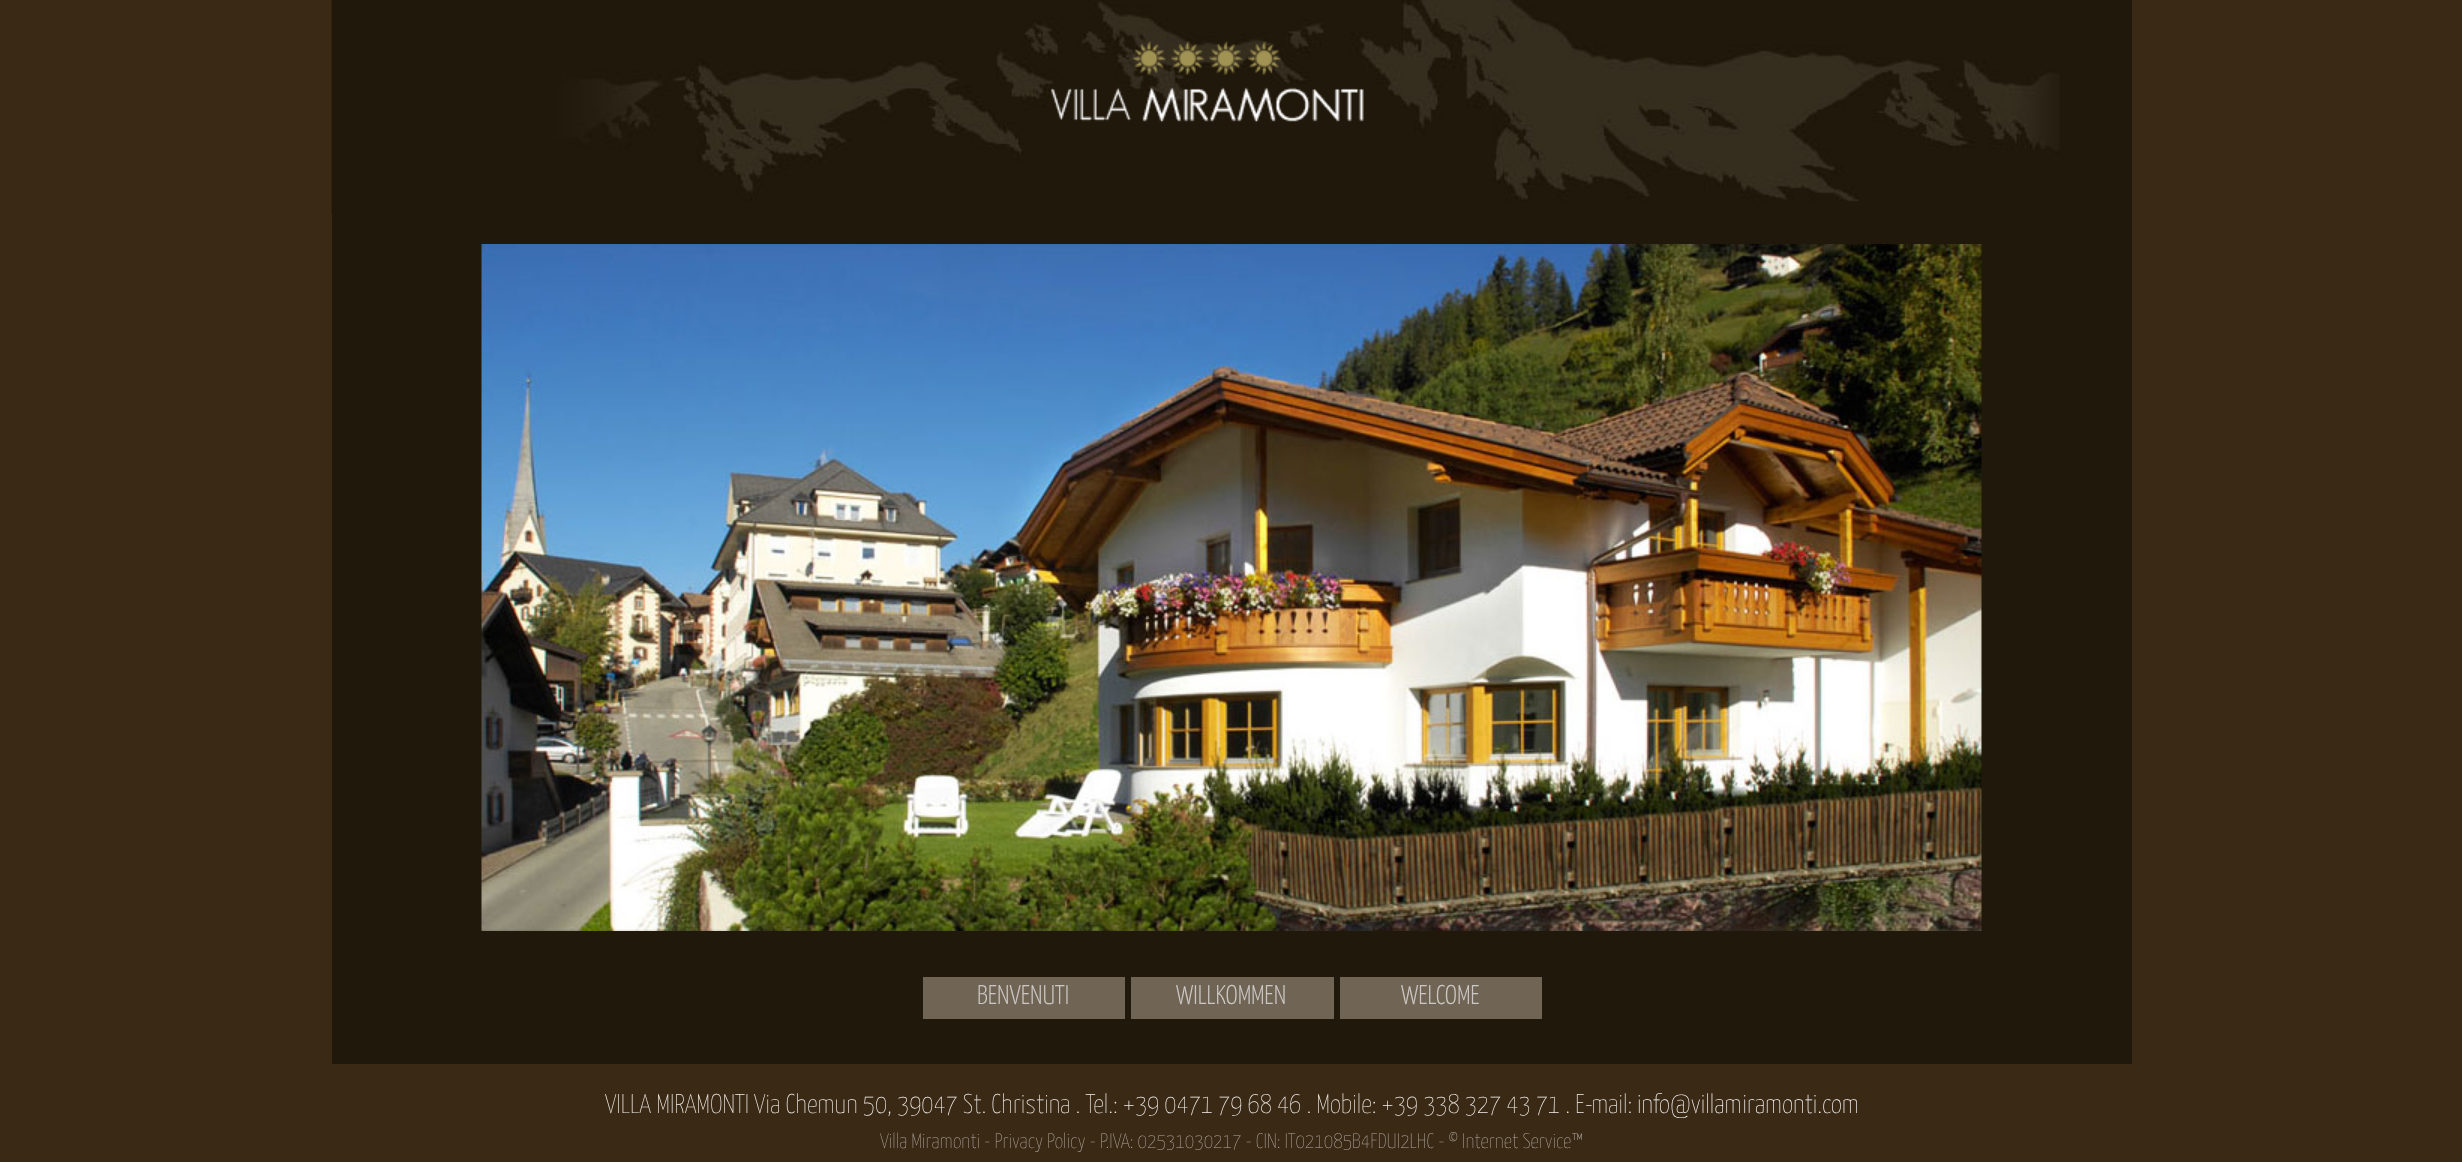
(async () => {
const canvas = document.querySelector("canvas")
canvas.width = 2462
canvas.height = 1162
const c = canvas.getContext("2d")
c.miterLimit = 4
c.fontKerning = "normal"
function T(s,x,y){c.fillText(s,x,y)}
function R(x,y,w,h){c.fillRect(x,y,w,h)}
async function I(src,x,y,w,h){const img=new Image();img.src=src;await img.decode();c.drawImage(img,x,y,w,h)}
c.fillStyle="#3a2915"
R(0,0,2462,1162)
c.fillStyle="#20180b"
R(332,0,1800,1064)
await I("1.png",331,0,1729,214)
await I("2.png",1051,41,313,82)
await I("3.png",481,244,1501,687)
c.fillStyle="#706454"
R(923,977,202,42)
c.font="300 27px Yanone Kaffeesatz"
c.fillStyle="#ccc7c4"
T("BENVENUTI",977,1004)
c.fillStyle="#706454"
R(1131,977,203,42)
c.fillStyle="#ccc7c4"
T("WILLKOMMEN",1176,1004)
c.fillStyle="#706454"
R(1340,977,202,42)
c.fillStyle="#ccc7c4"
T("WELCOME",1401,1004)
c.font="200 27px Yanone Kaffeesatz"
c.fillStyle="#f1eee8"
T("VILLA MIRAMONTI Via Chemun 50, 39047 St. Christina . Tel.: +39 0471 79 68 46 . Mobile: +39 338 327 43 71 . E-mail:",605,1113)
c.fillStyle="#fff"
T("info@villamiramonti.com",1637,1113)
c.font="200 21px Yanone Kaffeesatz"
c.fillStyle="#b0a9a1"
T("Villa Miramonti - Privacy Policy - P.IVA: 02531030217 - CIN: IT021085B4FDUI2LHC - © Internet Service™",880,1148)
})()
